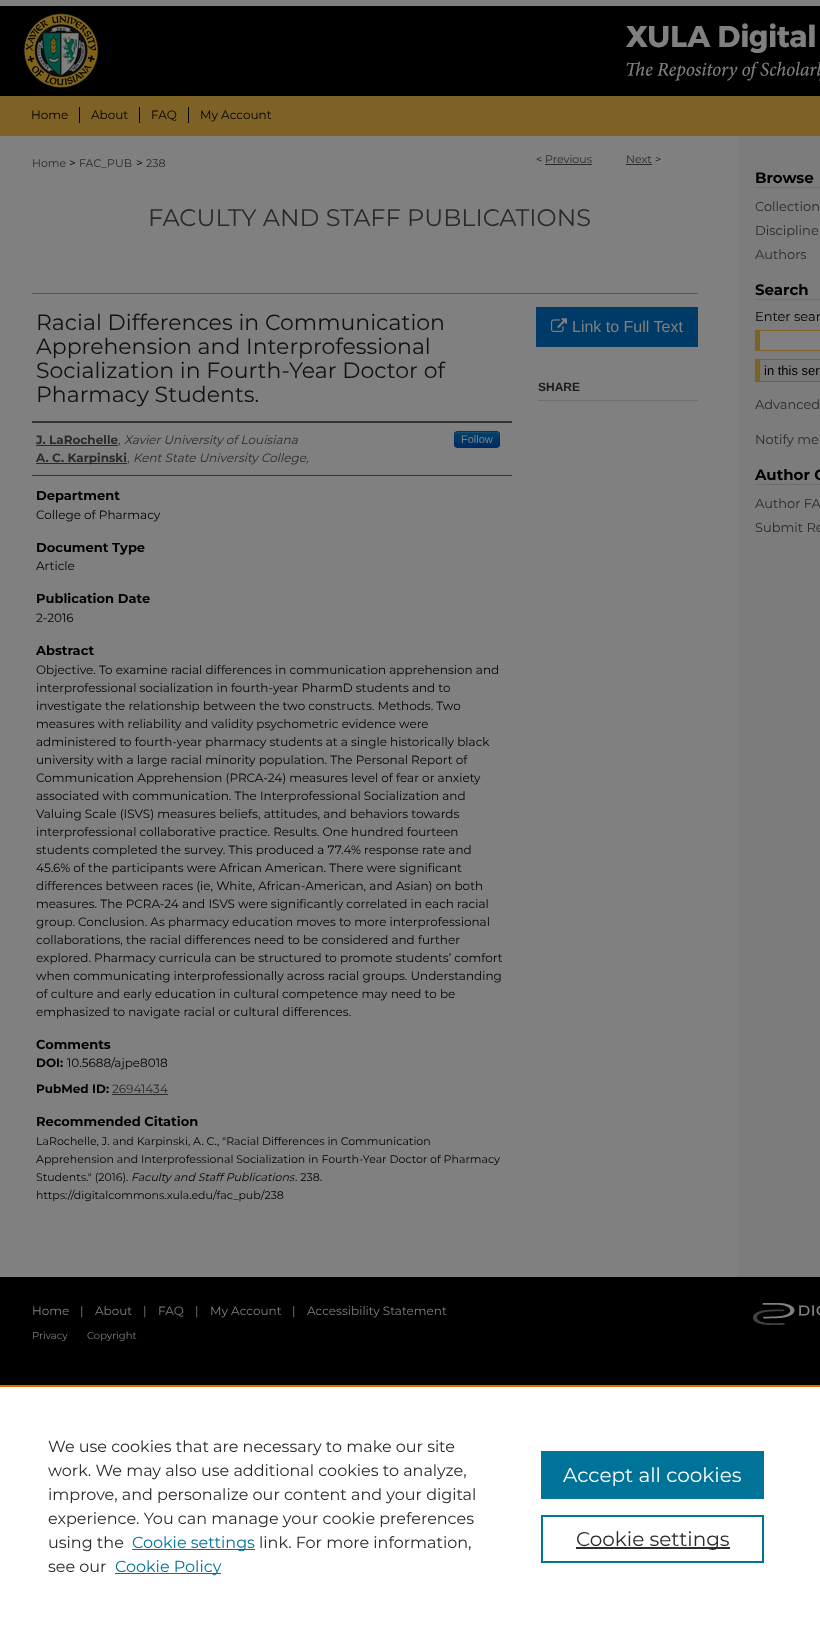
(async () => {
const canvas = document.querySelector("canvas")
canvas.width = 820
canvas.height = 1627
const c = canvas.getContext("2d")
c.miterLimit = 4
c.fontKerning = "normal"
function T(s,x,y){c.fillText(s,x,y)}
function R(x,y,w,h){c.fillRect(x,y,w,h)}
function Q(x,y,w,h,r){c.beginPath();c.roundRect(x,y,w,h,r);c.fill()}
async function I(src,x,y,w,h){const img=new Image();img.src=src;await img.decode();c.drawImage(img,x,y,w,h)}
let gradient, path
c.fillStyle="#000"
R(0,0,820,1627)
await I("1.png",0,0,820,88)
c.fillStyle="#7e6125"
R(0,96,820,40)
c.fillStyle="#000"
R(79,107,1,16)
c.font="12px Montserrat"
T("Home",31,119)
R(139,107,1,16)
T("About",91,119)
R(188,107,1,16)
T("FAQ",151,119)
T("My Account",200,119)
await I("2.png",0,136,820,1141)
c.font="11px Montserrat"
c.fillStyle="#2a2a2a"
T("Home",32,167)
c.font="12px Montserrat"
c.fillStyle="#000"
T(">",69,167)
c.font="11px Montserrat"
c.fillStyle="#2a2a2a"
T("FAC_PUB",79,167)
c.font="12px Montserrat"
c.fillStyle="#000"
T(">",136,167)
c.font="11px Montserrat"
c.fillStyle="#2a2a2a"
T("238",146,167)
c.fillStyle="#111"
T("<",536,163)
c.fillStyle="#2a2a2a"
T("Previous",545,163)
R(545,164,47,1)
T("Next",626,163)
R(626,164,26,1)
c.fillStyle="#111"
T(">",655,163)
c.font="24px Montserrat"
c.fillStyle="#2a2a2a"
T("FACULTY AND STAFF PUBLICATIONS",148,226)
c.fillStyle="#555"
R(32,293,666,1)
c.font="22px Montserrat"
c.fillStyle="#111"
T("Racial Differences in Communication",36,330)
T("Apprehension and Interprofessional",36,354)
T("Socialization in Fourth-Year Doctor of",36,378)
T("Pharmacy Students.",36,402)
c.fillStyle="#333"
R(32,421,480,2)
R(32,475,480,1)
c.font="bold 12px Montserrat"
c.fillStyle="#2a2a2a"
T("J. LaRochelle",36,444)
R(36,445,82,1)
c.font="12px Montserrat"
T(",",118,444)
c.font="italic 12px Montserrat"
T("Xavier University of Louisiana",124,444)
c.fillStyle="#003a66"
Q(454,431,46,17,4)
c.save()
c.beginPath()
c.roundRect(454,431,46,17,4)
c.clip()
gradient = c.createLinearGradient(477,432,477,447)
gradient.addColorStop(0,"#046")
gradient.addColorStop(1,"#002b66")
c.fillStyle = gradient
R(454,432,46,15)
c.restore()
c.fillStyle="#80808033"
path = new Path2D("M458 433h25c14 0 16-4 16 11c0-11 3-12-9-12h-26c-7 0-9-1-9 6v7c0-3-1-12 3-12z")
c.fill(path)
path = new Path2D("M498.5 446.5c-.5 .5-1.5 1-2.5 1h-38c-1 0-2-.5-2.5-1")
c.strokeStyle="#00000040"
c.stroke(path)
path = new Path2D("M455.5 446.5c-1.5-2-1-5-1-7c0-9 .5-8 10-8h25c9.5 0 10-1 10 8c0 2 .5 5-1 7")
c.strokeStyle="#0000001a"
c.stroke(path)
c.font="11px Liberation Sans"
c.fillStyle="#808080"
T("Follow",461,443)
c.fillStyle="#2a2a2a"
R(36,463,91,1)
c.font="bold 12px Montserrat"
T("A. C. Karpinski",36,462)
c.font="12px Montserrat"
T(",",127,462)
c.font="italic 12px Montserrat"
T("Kent State University College,",133,462)
c.font="bold 13px Montserrat"
c.fillStyle="#000"
T("Department",36,500)
c.font="12px Montserrat"
T("College of Pharmacy",36,519)
c.font="bold 13px Montserrat"
T("Document Type",36,552)
c.font="12px Montserrat"
T("Article",36,570)
c.font="bold 13px Montserrat"
T("Publication Date",36,603)
c.font="12px Montserrat"
T("2-2016",36,622)
c.font="bold 13px Montserrat"
T("Abstract",36,655)
c.font="12px Montserrat"
T("Objective. To examine racial differences in communication apprehension and",36,674)
T("interprofessional socialization in fourth-year PharmD students and to",36,692)
T("investigate the relationship between the two constructs. Methods. Two",36,710)
T("measures with reliability and validity psychometric evidence were",36,728)
T("administered to fourth-year pharmacy students at a single historically black",36,746)
T("university with a large racial minority population. The Personal Report of",36,764)
T("Communication Apprehension (PRCA-24) measures level of fear or anxiety",36,782)
T("associated with communication. The Interprofessional Socialization and",36,800)
T("Valuing Scale (ISVS) measures beliefs, attitudes, and behaviors towards",36,818)
T("interprofessional collaborative practice. Results. One hundred fourteen",36,836)
T("students completed the survey. This produced a 77.4% response rate and",36,854)
T("45.6% of the participants were African American. There were significant",36,872)
T("differences between races (ie, White, African-American, and Asian) on both",36,890)
T("measures. The PCRA-24 and ISVS were significantly correlated in each racial",36,908)
T("group. Conclusion. As pharmacy education moves to more interprofessional",36,926)
T("collaborations, the racial differences need to be considered and further",36,944)
T("explored. Pharmacy curricula can be structured to promote students’ comfort",36,962)
T("when communicating interprofessionally across racial groups. Understanding",36,980)
T("of culture and early education in cultural competence may need to be",36,998)
T("emphasized to navigate racial or cultural differences.",36,1016)
c.font="bold 13px Montserrat"
T("Comments",36,1049)
c.font="bold 12px Montserrat"
T("DOI:",36,1067)
c.font="12px Montserrat"
T("10.5688/ajpe8018",67,1067)
c.font="bold 12px Montserrat"
T("PubMed ID:",36,1093)
c.font="12px Montserrat"
c.fillStyle="#2a2a2a"
T("26941434",112,1093)
R(112,1094,56,1)
c.font="bold 13px Montserrat"
c.fillStyle="#000"
T("Recommended Citation",36,1126)
c.font="11px Montserrat"
T("LaRochelle, J. and Karpinski, A. C., \"Racial Differences in Communication",36,1145)
T("Apprehension and Interprofessional Socialization in Fourth-Year Doctor of Pharmacy",36,1163)
T("Students.\" (2016).",36,1181)
c.font="italic 11px Montserrat"
T("Faculty and Staff Publications",131,1181)
c.font="11px Montserrat"
T(". 238.",295,1181)
T("https://digitalcommons.xula.edu/fac_pub/238",36,1199)
c.fillStyle="#003a66"
R(536,307,162,40)
await I("3.png",551,318,16,14)
c.font="16px Liberation Sans"
c.fillStyle="#808080"
T("Link to Full Text",572,332)
c.fillStyle="#6f6f6f"
R(538,400,160,1)
c.font="bold 12px Liberation Sans"
c.fillStyle="#1a1a1a"
T("SHARE",538,391)
c.fillStyle="#6c6c6c"
R(755,187,65,1)
c.font="bold 15px Montserrat"
c.fillStyle="#000"
T("Browse",755,183)
c.font="13px Montserrat"
c.fillStyle="#2a2a2a"
T("Collection",755,211)
T("Discipline",755,235)
T("Authors",755,259)
c.fillStyle="#6c6c6c"
R(755,299,65,1)
c.font="bold 15px Montserrat"
c.fillStyle="#000"
T("Search",755,295)
c.font="13px Montserrat"
T("Enter sear",755,321)
c.fillStyle="#808080"
R(760,331,60,19)
c.fillStyle="#7e6125"
R(755,330,65,1)
R(755,350,65,1)
R(755,330,5,21)
c.fillStyle="#787878"
R(760,360,60,21)
c.fillStyle="#7e6125"
R(755,359,65,1)
R(755,381,65,1)
R(755,359,5,23)
c.font="13px Liberation Sans"
c.fillStyle="#000"
T("in this ser",764,375)
c.font="13px Montserrat"
c.fillStyle="#2a2a2a"
T("Advanced",755,409)
T("Notify me",755,444)
c.fillStyle="#6c6c6c"
R(755,484,65,1)
c.font="bold 15px Montserrat"
c.fillStyle="#000"
T("Author C",755,480)
c.font="13px Montserrat"
c.fillStyle="#2a2a2a"
T("Author FA",755,508)
T("Submit Re",755,532)
c.font="12px Montserrat"
c.fillStyle="#808080"
T("Home",32,1315)
T("|",80,1315)
T("About",95,1315)
T("|",143,1315)
T("FAQ",158,1315)
T("|",195,1315)
T("My Account",210,1315)
T("|",292,1315)
T("Accessibility Statement",307,1315)
await I("4.png",753,1303,67,22)
c.font="10px Montserrat"
T("Privacy",32,1339)
T("Copyright",87,1339)
c.fillStyle="#fff"
R(0,1387,820,240)
c.fillStyle="#eb6500"
R(0,1385,820,2)
c.font="16px Montserrat"
c.fillStyle="#2a2a2a"
T("We use cookies that are necessary to make our site",48,1452)
T("work. We may also use additional cookies to analyze,",48,1476)
T("improve, and personalize our content and your digital",48,1500)
T("experience. You can manage your cookie preferences",48,1524)
T("using the",48,1548)
c.fillStyle="#007398"
R(132,1549,123,1)
T("Cookie settings",132,1548)
c.fillStyle="#2a2a2a"
T("link. For more information,",259,1548)
T("see our",48,1572)
c.fillStyle="#007398"
R(115,1573,106,1)
T("Cookie Policy",115,1572)
R(541,1451,223,48)
c.font="20px Montserrat"
c.fillStyle="#fff"
T("Accept all cookies",563,1482)
c.strokeStyle="#007398"
c.lineWidth=2
c.strokeRect(542,1516,221,46)
c.fillStyle="#2e2e2e"
R(576,1547,154,2)
c.fillStyle="#2a2a2a"
T("Cookie settings",576,1546)
})()
